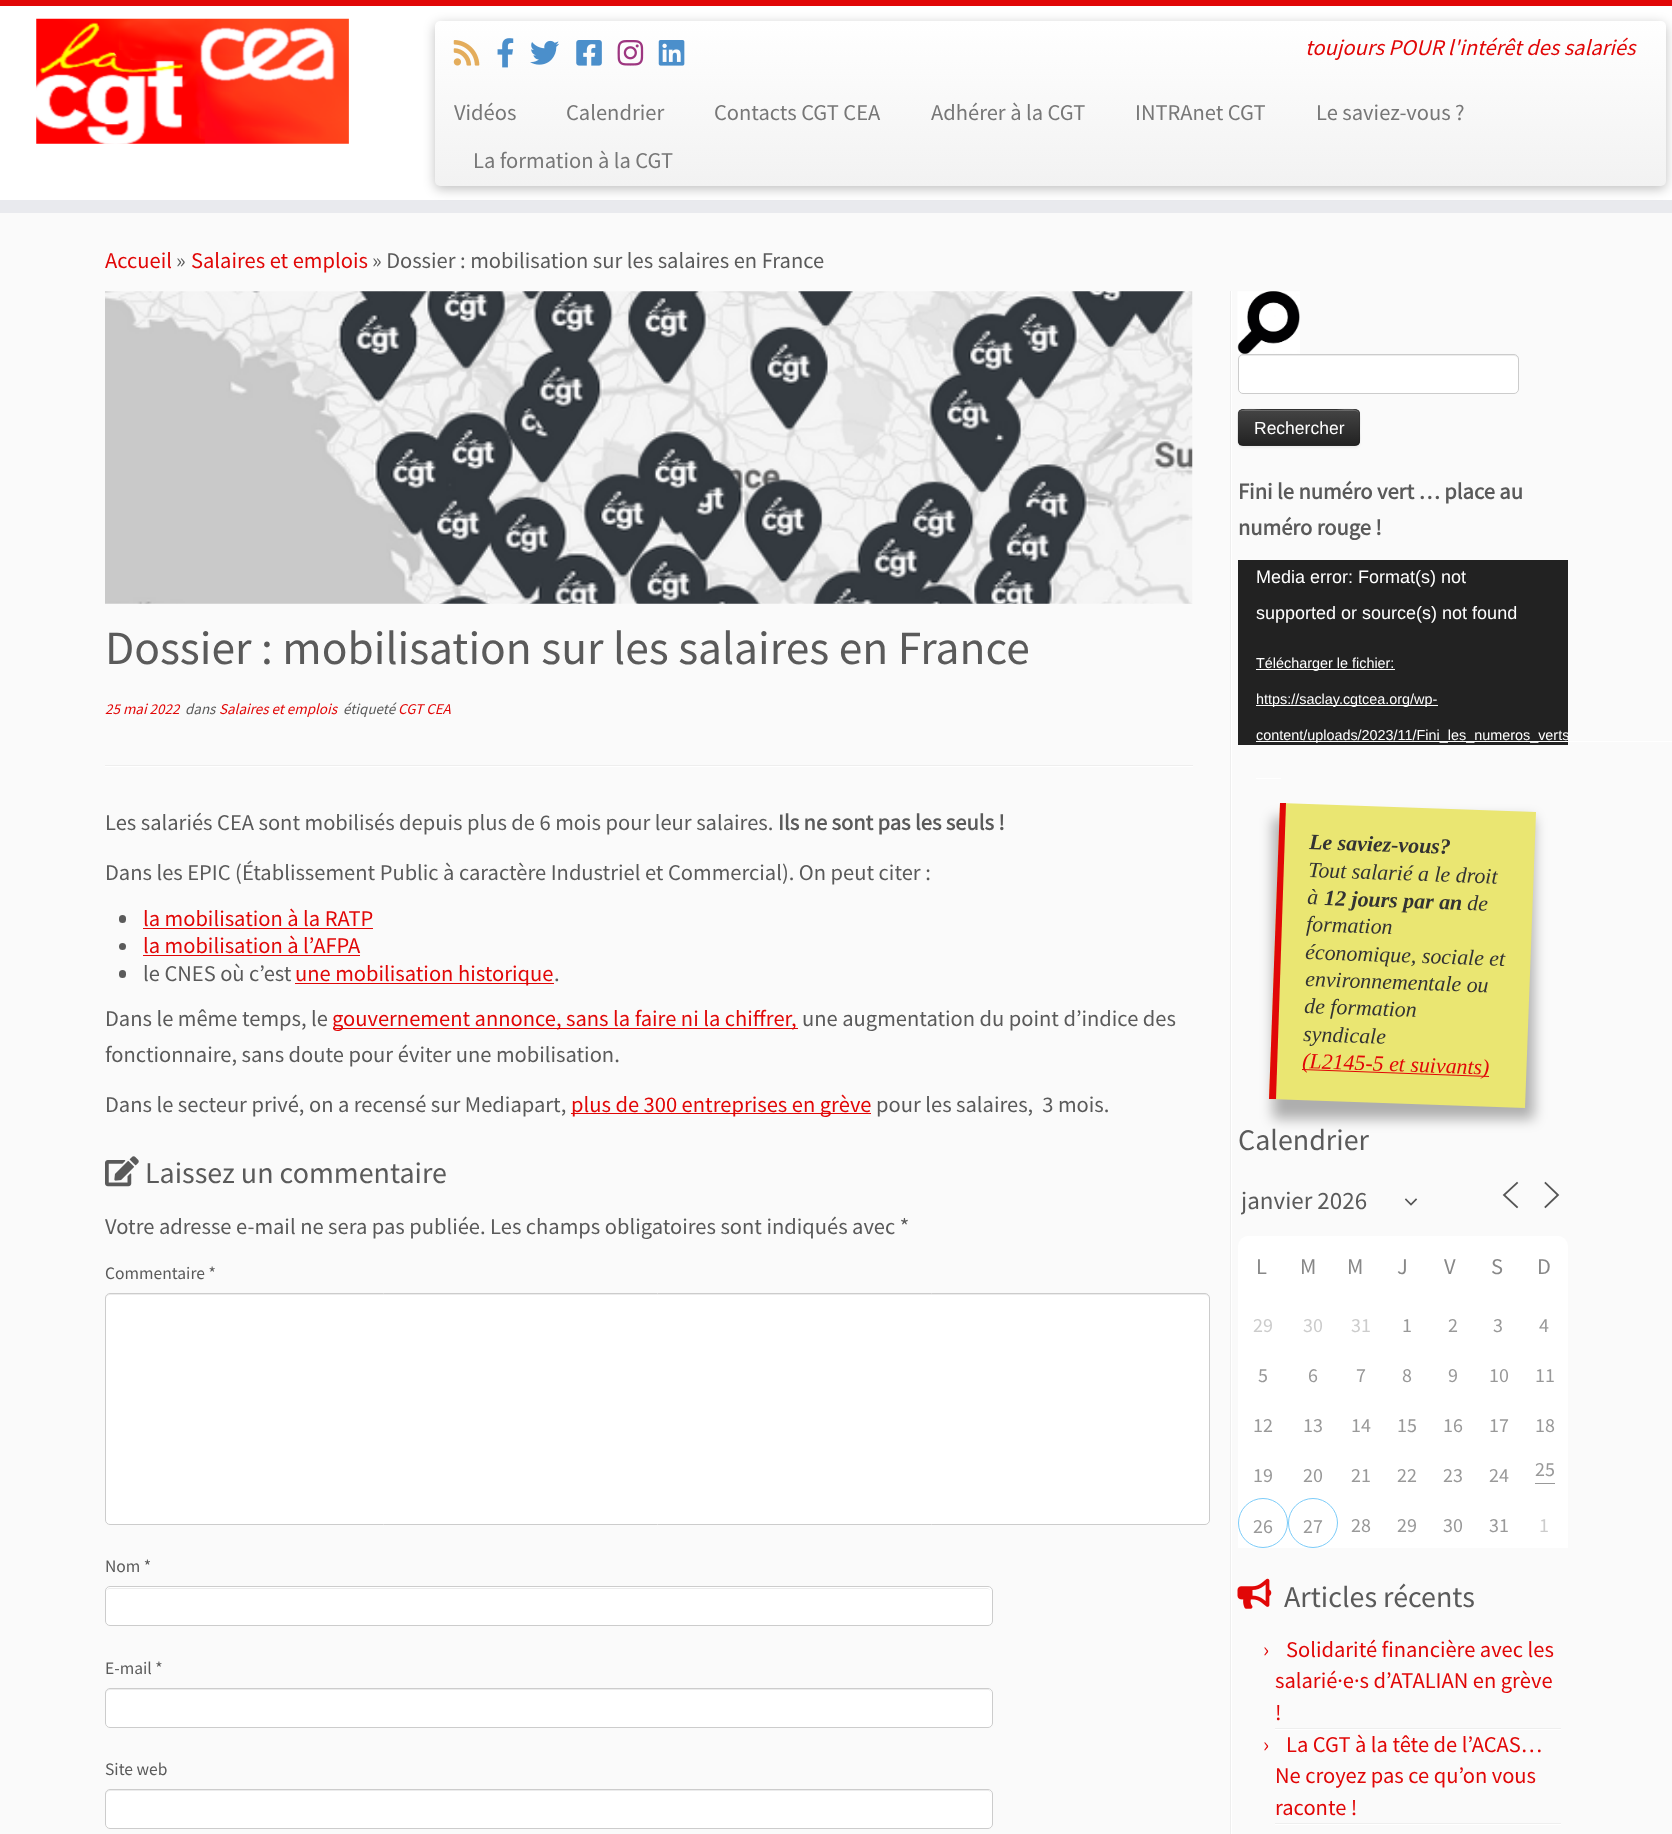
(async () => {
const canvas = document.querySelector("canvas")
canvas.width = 1672
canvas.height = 1834
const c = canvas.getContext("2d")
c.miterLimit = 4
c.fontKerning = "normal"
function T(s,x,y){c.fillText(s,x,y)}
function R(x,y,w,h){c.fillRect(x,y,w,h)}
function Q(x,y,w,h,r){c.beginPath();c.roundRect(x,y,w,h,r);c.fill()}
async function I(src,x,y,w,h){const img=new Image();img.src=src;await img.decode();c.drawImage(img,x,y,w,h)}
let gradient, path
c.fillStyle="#fafafa"
R(0,0,1672,1834)
c.fillStyle="#fff"
R(0,6,1672,194)
c.fillStyle="#e10707"
R(0,0,1672,6)
c.fillStyle="#e9eaee"
R(0,200,1672,13)
await I("1.png",36,18,313,126)
c.fillStyle="#00000040"
c.filter="blur(6px)"
c.beginPath()
c.roundRect(435,24,1231,165,5)
c.fill()
c.filter="none"
gradient = c.createLinearGradient(1051,21,1051,186)
gradient.addColorStop(0,"#fff")
gradient.addColorStop(1,"#f2f2f2")
c.fillStyle = gradient
Q(435,21,1231,165,5)
await I("2.png",453,40,27,26)
await I("3.png",497,38,17,30)
await I("4.png",530,40,30,25)
await I("5.png",576,40,26,26)
await I("6.png",617,40,27,26)
await I("7.png",658,40,27,26)
c.font="italic 22.5px Source Sans Pro"
c.fillStyle="#e10707"
T("toujours POUR l'intérêt des salariés",1305,55)
c.font="22.5px Source Sans Pro"
c.fillStyle="#777"
T("Vidéos",454,120)
T("Calendrier",566,120)
T("Contacts CGT CEA",714,120)
T("Adhérer à la CGT",931,120)
T("INTRAnet CGT",1135,120)
T("Le saviez-vous ?",1316,120)
T("La formation à la CGT",473,168)
c.fillStyle="#e10707"
T("Accueil",105,268)
c.fillStyle="#5a5a5a"
T("»",176,268)
c.fillStyle="#e10707"
T("Salaires et emplois",191,268)
c.fillStyle="#5a5a5a"
T("» Dossier : mobilisation sur les salaires en France",372,268)
await I("8.png",105,291,1088,313)
c.font="47.5px Source Sans Pro"
T("Dossier : mobilisation sur les salaires en France",105,664)
c.font="italic 15px Source Sans Pro"
c.fillStyle="#e10707"
T("25 mai 2022",105,714)
c.fillStyle="#5a5a5a"
T("dans",185,714)
c.fillStyle="#e10707"
T("Salaires et emplois",219,714)
c.fillStyle="#5a5a5a"
T("étiqueté",343,714)
c.fillStyle="#e10707"
T("CGT CEA",398,714)
c.fillStyle="#eee"
R(105,765,1088,1)
c.fillStyle="#fff"
R(105,766,1088,1)
c.font="22.5px Source Sans Pro"
c.fillStyle="#5a5a5a"
T("Les salariés CEA sont mobilisés depuis plus de 6 mois pour leur salaires.",105,830)
c.font="bold 22.5px Source Sans Pro"
T("Ils ne sont pas les seuls !",778,830)
c.font="22.5px Source Sans Pro"
T("Dans les EPIC (Établissement Public à caractère Industriel et Commercial). On peut citer :",105,880)
Q(119,915,7,8,3.5)
c.fillStyle="#e10707"
T("la mobilisation à la RATP",143,926)
R(143,928,230,1)
c.fillStyle="#5a5a5a"
c.beginPath()
c.arc(122.5,946.5,3.5,0,7)
c.fill()
c.fillStyle="#e10707"
T("la mobilisation à l’AFPA",143,953)
R(143,955,217,1)
c.fillStyle="#5a5a5a"
Q(119,970,7,8,3.5)
T("le CNES où c’est",143,981)
c.fillStyle="#e10707"
R(295,983,259,1)
T("une mobilisation historique",295,981)
c.fillStyle="#5a5a5a"
T(".",554,981)
T("Dans le même temps, le",105,1026)
c.fillStyle="#e10707"
R(333,1028,465,1)
T("gouvernement annonce, sans la faire ni la chiffrer,",332,1026)
c.fillStyle="#5a5a5a"
T("une augmentation du point d’indice des",802,1026)
T("fonctionnaire, sans doute pour éviter une mobilisation.",105,1062)
T("Dans le secteur privé, on a recensé sur Mediapart,",105,1112)
c.fillStyle="#e10707"
R(571,1113,300,1)
T("plus de 300 entreprises en grève",571,1112)
c.fillStyle="#5a5a5a"
T("pour les salaires,  3 mois.",876,1112)
await I("9.png",105,1156,34,31)
c.font="30px Source Sans Pro"
T("Laissez un commentaire",145,1183)
c.font="22.5px Source Sans Pro"
T("Votre adresse e-mail ne sera pas publiée. Les champs obligatoires sont indiqués avec *",105,1234)
c.font="17.5px Source Sans Pro"
T("Commentaire *",105,1279)
c.fillStyle="#fff"
Q(105,1293,1105,232,5)
c.fillStyle="#ececec"
path = new Path2D("M110 1295h1095c2 0 4 2 4 4c0-3-1-5-4-5h-1095c-3 0-4 2-4 5c0-2 2-4 4-4z")
c.fill(path)
c.beginPath()
c.roundRect(105.5,1293.5,1104,231,4.5)
c.strokeStyle="#ccc"
c.stroke()
c.fillStyle="#5a5a5a"
T("Nom *",105,1572)
c.fillStyle="#fff"
Q(105,1586,888,40,5)
c.fillStyle="#ececec"
path = new Path2D("M110 1589h878l2 1c0-1-2-2-3-2h-877c-2 0-4 2-4 4c0-2 2-3 4-3z")
c.fill(path)
c.beginPath()
c.roundRect(105.5,1586.5,887,39,4.5)
c.stroke()
c.fillStyle="#5a5a5a"
T("E-mail *",105,1674)
c.fillStyle="#fff"
Q(105,1688,888,40,5)
c.fillStyle="#ececec"
path = new Path2D("M110 1690h878c2 0 3 2 3 4c0-3-1-5-4-5h-877c-3 0-4 2-4 5c0-2 2-4 4-4z")
c.fill(path)
c.beginPath()
c.roundRect(105.5,1688.5,887,39,4.5)
c.stroke()
c.fillStyle="#5a5a5a"
T("Site web",105,1775)
c.fillStyle="#fff"
Q(105,1789,888,40,5)
c.fillStyle="#ececec"
path = new Path2D("M110 1791h878c2 0 3 2 3 4c0-3-1-5-4-5h-877c-3 0-4 2-4 5c0-2 2-4 4-4z")
c.fill(path)
c.beginPath()
c.roundRect(105.5,1789.5,887,39,4.5)
c.stroke()
c.fillStyle="#eee"
R(1230,291,1,1543)
c.fillStyle="#fff"
R(1231,291,1,1543)
await I("10.png",1237,291,63,63)
Q(1238,354,281,40,5)
c.fillStyle="#ececec"
path = new Path2D("M1242 356h272c2 0 4 2 4 4c0-3-1-5-4-5h-271c-3 0-4 2-4 5c0-2 1-4 3-4z")
c.fill(path)
c.beginPath()
c.roundRect(1238.5,354.5,280,39,4.5)
c.stroke()
c.fillStyle="#0000000d"
c.filter="blur(1px)"
c.beginPath()
c.roundRect(1238,410,122,38,5)
c.fill()
c.filter="none"
c.fillStyle="#363636"
Q(1238,409,122,37,5)
c.save()
c.beginPath()
c.roundRect(1238,409,122,37,5)
c.clip()
gradient = c.createLinearGradient(1299,410,1299,445)
gradient.addColorStop(0,"#444")
gradient.addColorStop(1,"#222")
c.fillStyle = gradient
R(1238,410,122,35)
c.restore()
c.fillStyle="#ffffff33"
path = new Path2D("M1242 411h113c2 0 4 2 4 4c0-10-20-5-23-5h-74c-3 0-23-5-23 5c0-2 1-4 3-4z")
c.fill(path)
path = new Path2D("M1358 444.5c-.5 .5-2 1-3 1h-112.5c-1 0-2.5-.5-3-1")
c.strokeStyle="#00000040"
c.lineWidth=1.2
c.stroke(path)
path = new Path2D("M1239.5 444.5c-3-3-1.5-9.5-1.5-12.5c0-26.5-4.5-22.5 23-22.5h75c28 0 23.5-4 23.5 22.5c0 3 1.5 9.5-1.5 12.5")
c.strokeStyle="#0000001a"
c.stroke(path)
c.font="17.5px Liberation Sans"
c.fillStyle="#fff"
T("Rechercher",1254,434)
c.font="bold 22.5px Source Sans Pro"
c.fillStyle="#5a5a5a"
T("Fini le numéro vert … place au",1238,499)
T("numéro rouge !",1238,535)
c.fillStyle="#222"
R(1238,560,330,185)
c.font="18px Liberation Sans"
c.fillStyle="#fff"
T("Media error: Format(s) not",1256,583)
T("supported or source(s) not found",1256,619)
R(1256,669,139,1)
c.font="14.4px Liberation Sans"
T("Télécharger le fichier:",1256,668)
R(1256,705,182,1)
T("https://saclay.cgtcea.org/wp-",1256,704)
R(1256,741,416,1)
T("content/uploads/2023/11/Fini_les_numeros_verts",1256,740)
R(1256,778,25,1)
c.fillStyle="#0000004d"
c.filter="blur(6.5px)"
c.beginPath()
c.rect(1273,818,261,301)
c.fill()
c.filter="none"
c.fillStyle="#eae672"
path = new Path2D("M1280 803l256 9l-11 296l-256-9z")
c.fill(path)
c.fillStyle="#e10707"
path = new Path2D("M1280 803h6l-10 296h-7z")
c.fill(path)
c.font="italic bold 21.9px Liberation Serif"
c.fillStyle="#333"
c.save()
c.translate(1309,849)
c.rotate(2 * Math.PI / 180)
c.fillText("Le saviez-vous?",0,0)
c.restore()
c.font="italic 21.9px Liberation Serif"
c.save()
c.translate(1308,877)
c.rotate(2 * Math.PI / 180)
c.fillText("Tout salarié a le droit",0,0)
c.restore()
c.save()
c.translate(1307,904)
c.rotate(2 * Math.PI / 180)
c.fillText("à",0,0)
c.restore()
c.font="italic bold 21.9px Liberation Serif"
c.save()
c.translate(1324,905)
c.rotate(2 * Math.PI / 180)
c.fillText("12 jours par an",0,0)
c.restore()
c.font="italic 21.9px Liberation Serif"
c.save()
c.translate(1467,910)
c.rotate(2 * Math.PI / 180)
c.fillText("de",0,0)
c.restore()
c.save()
c.translate(1306,931)
c.rotate(2 * Math.PI / 180)
c.fillText("formation",0,0)
c.restore()
c.save()
c.translate(1305,959)
c.rotate(2 * Math.PI / 180)
c.fillText("économique, sociale et",0,0)
c.restore()
c.save()
c.translate(1305,986)
c.rotate(2 * Math.PI / 180)
c.fillText("environnementale ou",0,0)
c.restore()
c.save()
c.translate(1304,1013)
c.rotate(2 * Math.PI / 180)
c.fillText("de formation",0,0)
c.restore()
c.save()
c.translate(1303,1041)
c.rotate(2 * Math.PI / 180)
c.fillText("syndicale",0,0)
c.restore()
c.fillStyle="#e10707"
path = new Path2D("M1302 1069l187 7v1l-187-7z")
c.fill(path)
c.save()
c.translate(1302,1068)
c.rotate(2 * Math.PI / 180)
c.fillText("(L2145-5 et suivants)",0,0)
c.restore()
c.font="30px Source Sans Pro"
c.fillStyle="#5a5a5a"
T("Calendrier",1238,1150)
path = new Path2D("M1406 1199.5l5 5l5-5")
c.strokeStyle="#555"
c.lineWidth=1.7
c.lineCap="square"
c.stroke(path)
c.save()
c.beginPath()
c.rect(1241,1184,177,31)
c.clip()
c.font="25px Source Sans Pro"
T("janvier 2026",1241,1209)
c.restore()
path = new Path2D("M1517 1207l-13-12l13-12")
c.lineWidth=1.8
c.stroke(path)
path = new Path2D("M1545.5 1207l12.5-12l-12.5-12")
c.stroke(path)
c.fillStyle="#fff"
c.beginPath()
c.roundRect(1238,1236,330,62,[10,10,0,0])
c.fill()
c.font="22.5px Source Sans Pro"
c.fillStyle="#888"
T("L",1256,1274)
T("M",1300,1274)
T("M",1347,1274)
T("J",1397,1274)
T("V",1444,1274)
T("S",1491,1274)
T("D",1537,1274)
c.fillStyle="#fff"
R(1238,1298,330,250)
c.font="20px Source Sans Pro"
c.fillStyle="#ccc"
T("29",1253,1332)
T("30",1303,1332)
T("31",1351,1332)
c.fillStyle="#999"
T("1",1402,1332)
T("2",1448,1332)
T("3",1493,1332)
T("4",1539,1332)
T("5",1258,1382)
T("6",1308,1382)
T("7",1356,1382)
T("8",1402,1382)
T("9",1448,1382)
T("10",1489,1382)
T("11",1535,1382)
T("12",1253,1432)
T("13",1303,1432)
T("14",1351,1432)
T("15",1397,1432)
T("16",1443,1432)
T("17",1489,1432)
T("18",1535,1432)
T("19",1253,1482)
T("20",1303,1482)
T("21",1351,1482)
T("22",1397,1482)
T("23",1443,1482)
T("24",1489,1482)
T("25",1535,1476)
R(1535,1483,20,1)
c.beginPath()
c.arc(1263,1523,24.5,0,7)
c.strokeStyle="#7cccf9"
c.lineWidth=1
c.stroke()
T("26",1253,1533)
c.beginPath()
c.arc(1313,1523,24.5,0,7)
c.stroke()
T("27",1303,1533)
T("28",1351,1532)
T("29",1397,1532)
T("30",1443,1532)
T("31",1489,1532)
c.fillStyle="#ccc"
T("1",1539,1532)
await I("11.png",1237,1578,35,31)
c.font="30px Source Sans Pro"
c.fillStyle="#5a5a5a"
T("Articles récents",1284,1607)
c.fillStyle="#eee"
R(1275,1728,286,1)
c.font="22.5px Source Sans Pro"
c.fillStyle="#e10707"
T("›",1263,1657)
T("Solidarité financière avec les",1286,1657)
T("salarié·e·s d’ATALIAN en grève",1275,1688)
T("!",1275,1720)
c.fillStyle="#fff"
R(1275,1729,286,1)
c.fillStyle="#eee"
R(1275,1823,286,1)
c.fillStyle="#e10707"
T("›",1263,1752)
T("La CGT à la tête de l’ACAS…",1286,1752)
T("Ne croyez pas ce qu’on vous",1275,1783)
T("raconte !",1275,1815)
c.fillStyle="#fff"
R(1275,1824,286,1)
})()
